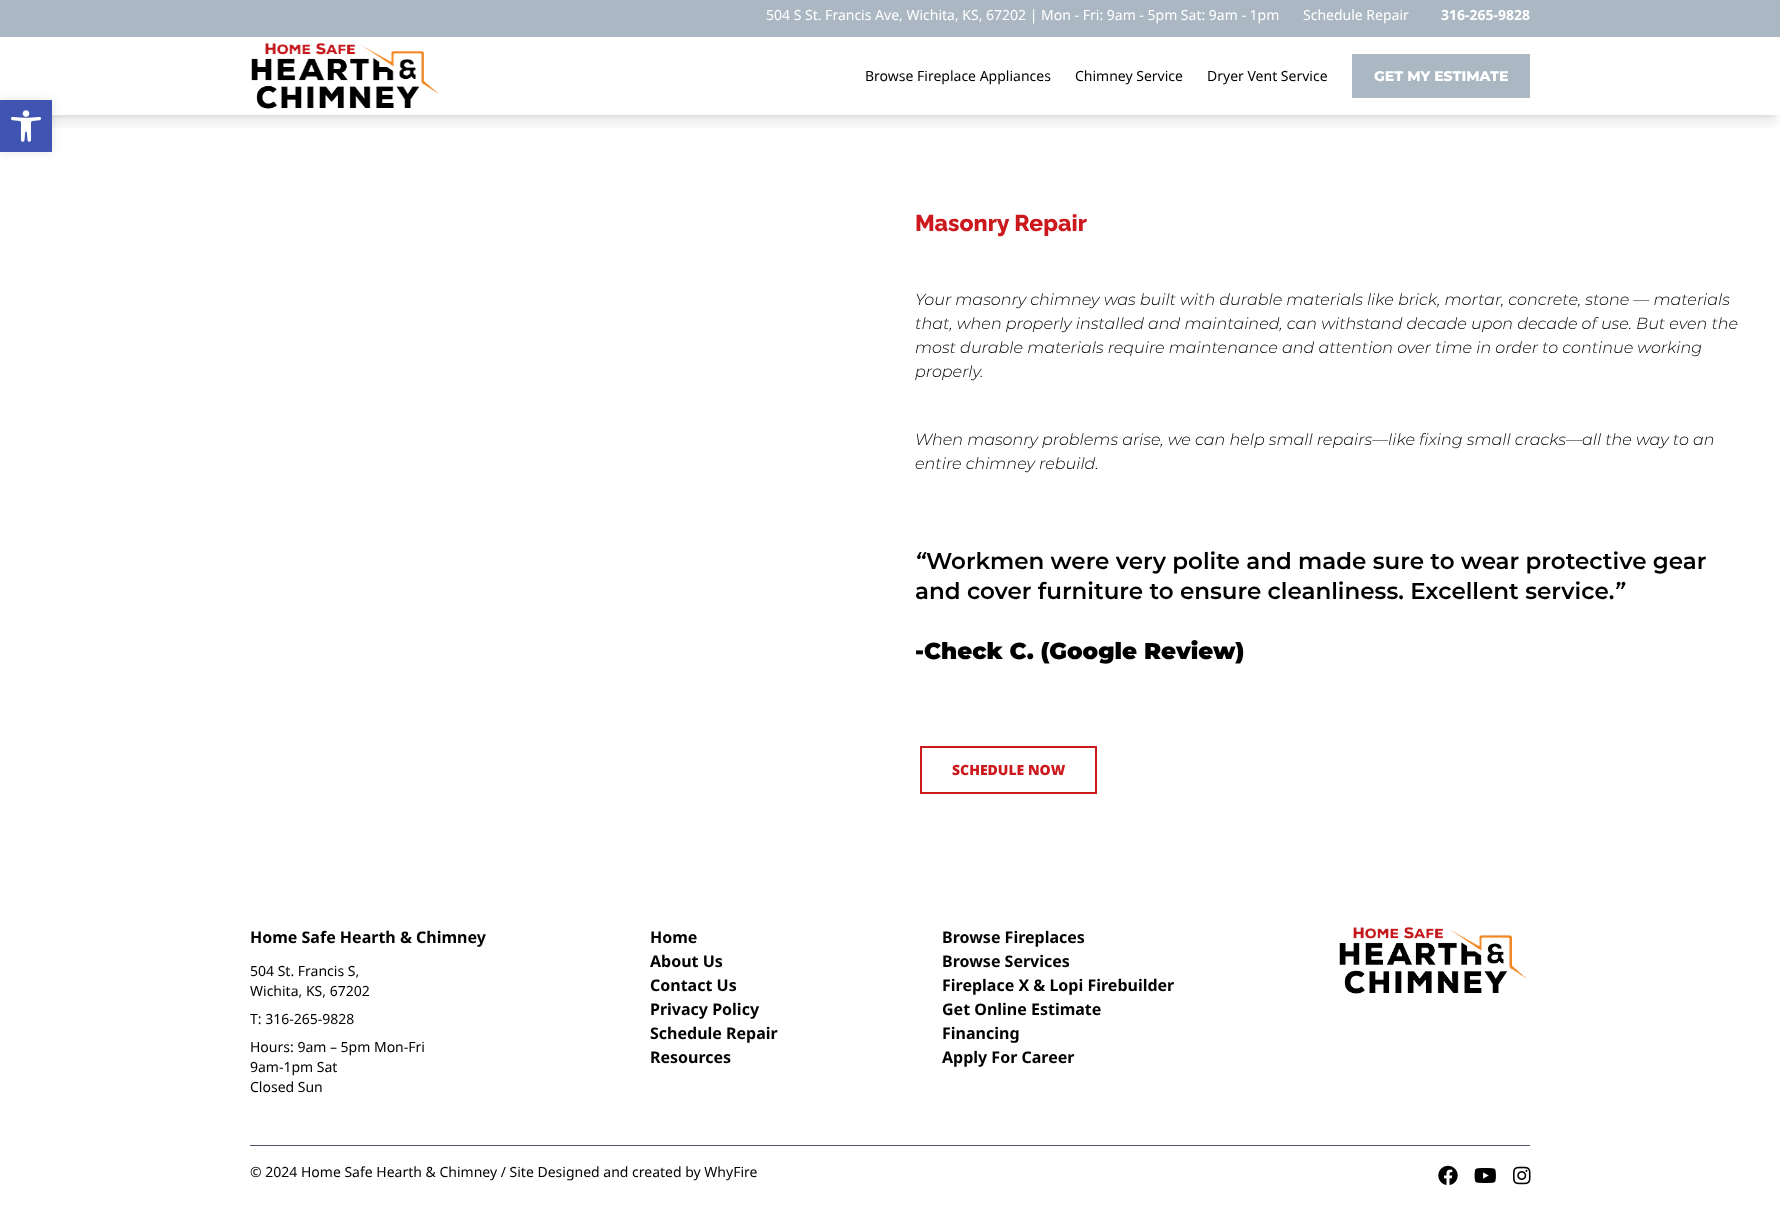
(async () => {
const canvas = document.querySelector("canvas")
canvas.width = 1780
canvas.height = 1222
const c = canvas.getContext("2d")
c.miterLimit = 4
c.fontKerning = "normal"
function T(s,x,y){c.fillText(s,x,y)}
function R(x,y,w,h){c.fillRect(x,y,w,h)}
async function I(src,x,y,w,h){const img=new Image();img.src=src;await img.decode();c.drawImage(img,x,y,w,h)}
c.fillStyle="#fff"
R(0,0,1780,1222)
c.fillStyle="#0000001a"
c.filter="blur(5px)"
c.beginPath()
c.rect(0,100,52,52)
c.fill()
c.filter="none"
c.fillStyle="#abb8c3"
R(0,0,1780,37)
c.save()
c.beginPath()
c.rect(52,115,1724,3)
c.clip()
c.fillStyle="#0000001a"
c.filter="blur(3px)"
c.beginPath()
c.rect(4,45,1772,70)
c.fill()
c.filter="none"
c.restore()
c.save()
c.beginPath()
c.rect(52,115,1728,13)
c.clip()
c.fillStyle="#0000001a"
c.filter="blur(7.5px)"
c.beginPath()
c.rect(3,50,1774,72)
c.fill()
c.filter="none"
c.restore()
c.fillStyle="#4054b2"
R(0,100,52,52)
await I("1.png",11,110,30,32)
c.font="14px Noto Sans"
c.fillStyle="#fff"
T("504 S St. Francis Ave, Wichita, KS, 67202 | Mon - Fri: 9am - 5pm Sat: 9am - 1pm",766,20)
T("Schedule Repair",1303,20)
c.font="bold 14px Noto Sans"
T("316-265-9828",1441,20)
await I("2.png",251,43,189,66)
c.font="14px Noto Sans"
c.fillStyle="#000"
T("Browse Fireplace Appliances",865,81)
T("Chimney Service",1075,81)
T("Dryer Vent Service",1207,81)
c.fillStyle="#abb8c3"
R(1352,54,178,44)
c.font="800 14px Montserrat"
c.fillStyle="#fff"
T("GET MY ESTIMATE",1374,81)
c.font="800 23px Raleway"
c.fillStyle="#cb191d"
T("Masonry Repair",915,231)
c.font="italic 300 16px Montserrat"
c.fillStyle="#000"
T("Your masonry chimney was built with durable materials like brick, mortar, concrete, stone — materials",915,305)
T("that, when properly installed and maintained, can withstand decade upon decade of use. But even the",915,329)
T("most durable materials require maintenance and attention over time in order to continue working",915,353)
T("properly.",915,377)
T("When masonry problems arise, we can help small repairs—like fixing small cracks—all the way to an",915,445)
T("entire chimney rebuild.",915,469)
c.font="italic 600 23px Montserrat"
T("“",915,569)
c.font="600 23px Montserrat"
T("Workmen were very polite and made sure to wear protective gear",926,569)
T("and cover furniture to ensure cleanliness. Excellent service.",915,599)
c.font="italic 600 23px Montserrat"
T("”",1614,599)
c.font="900 23px Montserrat"
T("-Check C. (Google Review)",915,659)
c.strokeStyle="#cb191d"
c.lineWidth=2
c.strokeRect(921,747,175,46)
c.font="800 14px Open Sans"
c.fillStyle="#cb191d"
T("SCHEDULE NOW",952,775)
c.font="bold 16px Noto Sans"
c.fillStyle="#000"
T("Home Safe Hearth & Chimney",250,943)
c.font="14px Noto Sans"
T("504 St. Francis S,",250,976)
T("Wichita, KS, 67202",250,996)
T("T: 316-265-9828",250,1024)
T("Hours: 9am – 5pm Mon-Fri",250,1052)
T("9am-1pm Sat",250,1072)
T("Closed Sun",250,1092)
c.font="bold 16px Noto Sans"
T("Home",650,943)
T("About Us",650,967)
T("Contact Us",650,991)
T("Privacy Policy",650,1015)
T("Schedule Repair",650,1039)
T("Resources",650,1063)
T("Browse Fireplaces",942,943)
T("Browse Services",942,967)
T("Fireplace X & Lopi Firebuilder",942,991)
T("Get Online Estimate",942,1015)
T("Financing",942,1039)
T("Apply For Career",942,1063)
await I("3.png",1339,927,188,67)
c.fillStyle="#4b5563"
R(250,1145,1280,1)
c.font="14px Noto Sans"
c.fillStyle="#000"
T("© 2024 Home Safe Hearth & Chimney / Site Designed and created by WhyFire",250,1177)
await I("4.png",1438,1165,20,20)
await I("5.png",1474,1168,22,15)
await I("6.png",1513,1166,18,19)
})()
